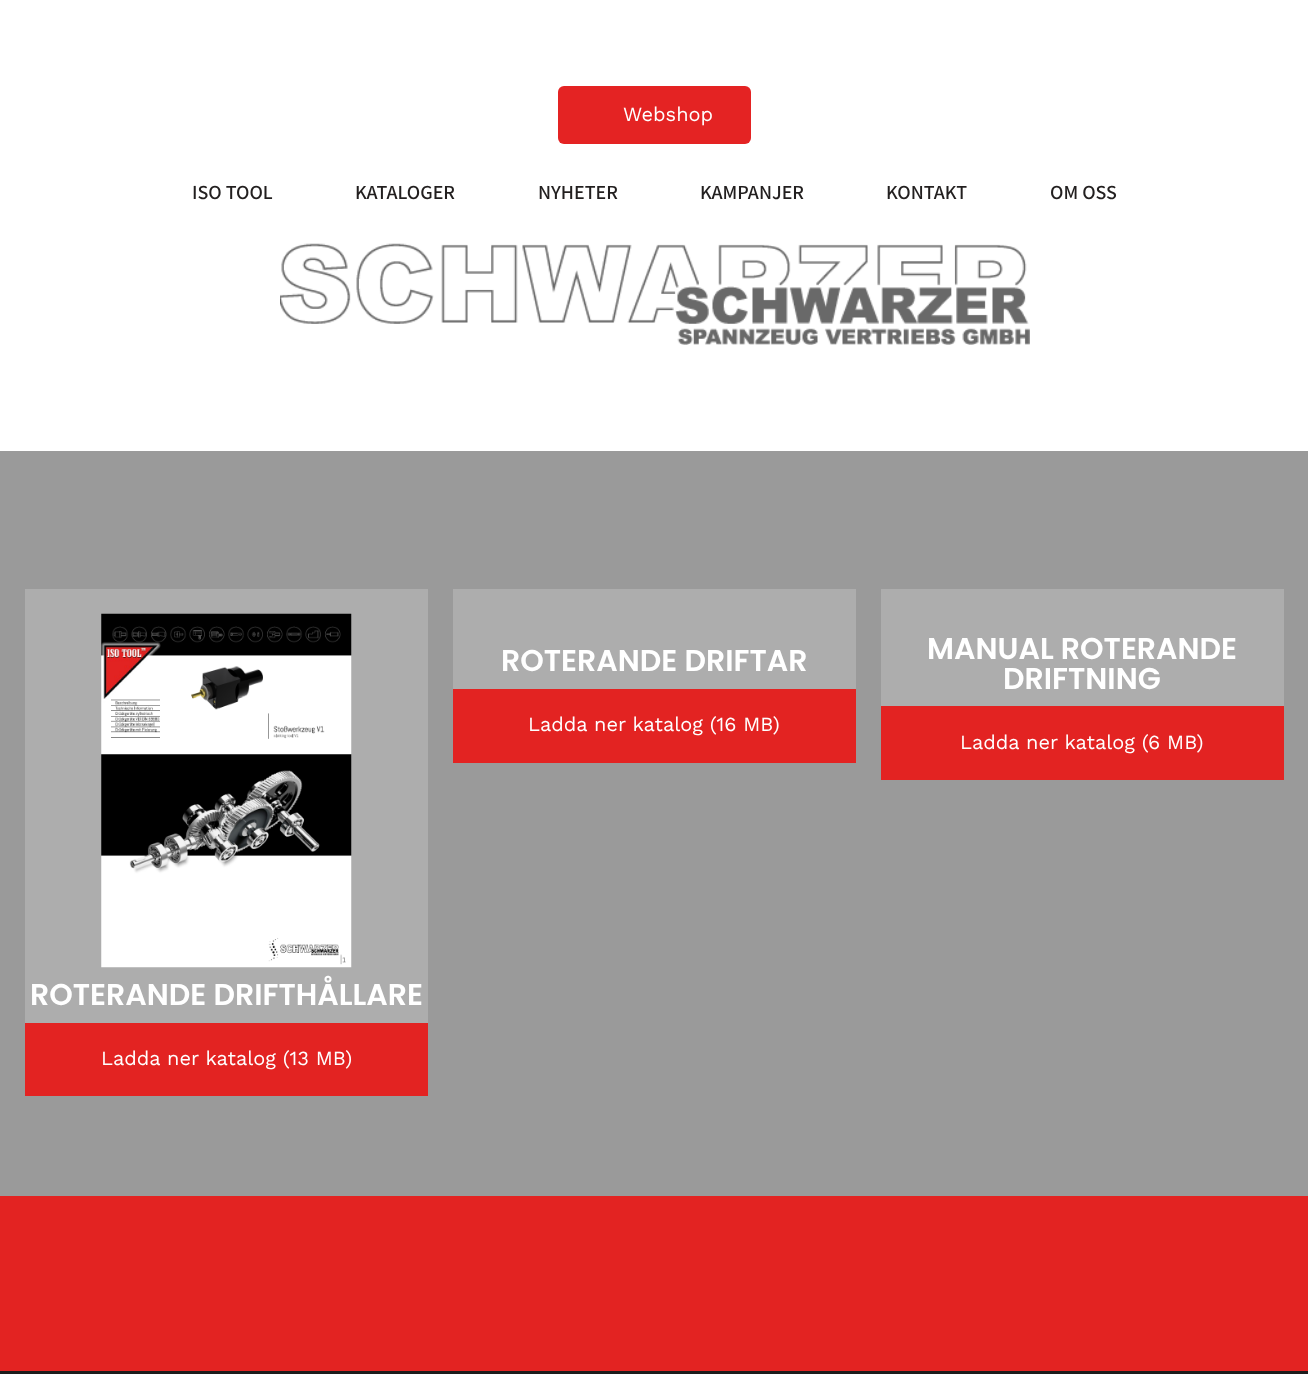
(async () => {
const canvas = document.querySelector("canvas")
canvas.width = 1308
canvas.height = 1374
const c = canvas.getContext("2d")
c.miterLimit = 4
c.fontKerning = "normal"
function T(s,x,y){c.fillText(s,x,y)}
function R(x,y,w,h){c.fillRect(x,y,w,h)}
function Q(x,y,w,h,r){c.beginPath();c.roundRect(x,y,w,h,r);c.fill()}
async function I(src,x,y,w,h){const img=new Image();img.src=src;await img.decode();c.drawImage(img,x,y,w,h)}
c.fillStyle="#fff"
R(0,0,1308,1374)
c.fillStyle="#e42323"
Q(558,86,193,58,6)
c.font="20px Work Sans"
c.fillStyle="#fff"
T("Webshop",623,121)
c.font="600 20px Assistant"
c.fillStyle="#221f1f"
T("ISO TOOL",192,199)
T("KATALOGER",355,199)
T("NYHETER",538,199)
T("KAMPANJER",700,199)
T("KONTAKT",886,199)
T("OM OSS",1050,199)
await I("1.png",280,243,750,102)
c.fillStyle="#9a9a9a"
R(0,451,1308,745)
c.fillStyle="#adadad"
R(453,589,403,100)
c.font="600 30px Poppins"
c.fillStyle="#fff"
T("ROTERANDE DRIFTAR",501,671)
c.fillStyle="#e32322"
R(453,689,403,74)
c.font="20px Work Sans"
c.fillStyle="#fff"
T("Ladda ner katalog (16 MB)",528,731)
c.fillStyle="#adadad"
R(881,589,403,117)
c.font="600 30px Poppins"
c.fillStyle="#fff"
T("MANUAL ROTERANDE",927,659)
T("DRIFTNING",1003,689)
c.fillStyle="#e32322"
R(881,706,403,74)
c.font="20px Work Sans"
c.fillStyle="#fff"
T("Ladda ner katalog (6 MB)",960,749)
c.fillStyle="#adadad"
R(25,589,403,434)
await I("2.png",101,613,251,355)
c.font="600 30px Poppins"
c.fillStyle="#fff"
T("ROTERANDE DRIFTHÅLLARE",30,1005)
c.fillStyle="#e32322"
R(25,1023,403,73)
c.font="20px Work Sans"
c.fillStyle="#fff"
T("Ladda ner katalog (13 MB)",101,1065)
c.fillStyle="#e32322"
R(0,1196,1308,175)
c.fillStyle="#1d1c1b"
R(0,1371,1308,3)
})()
